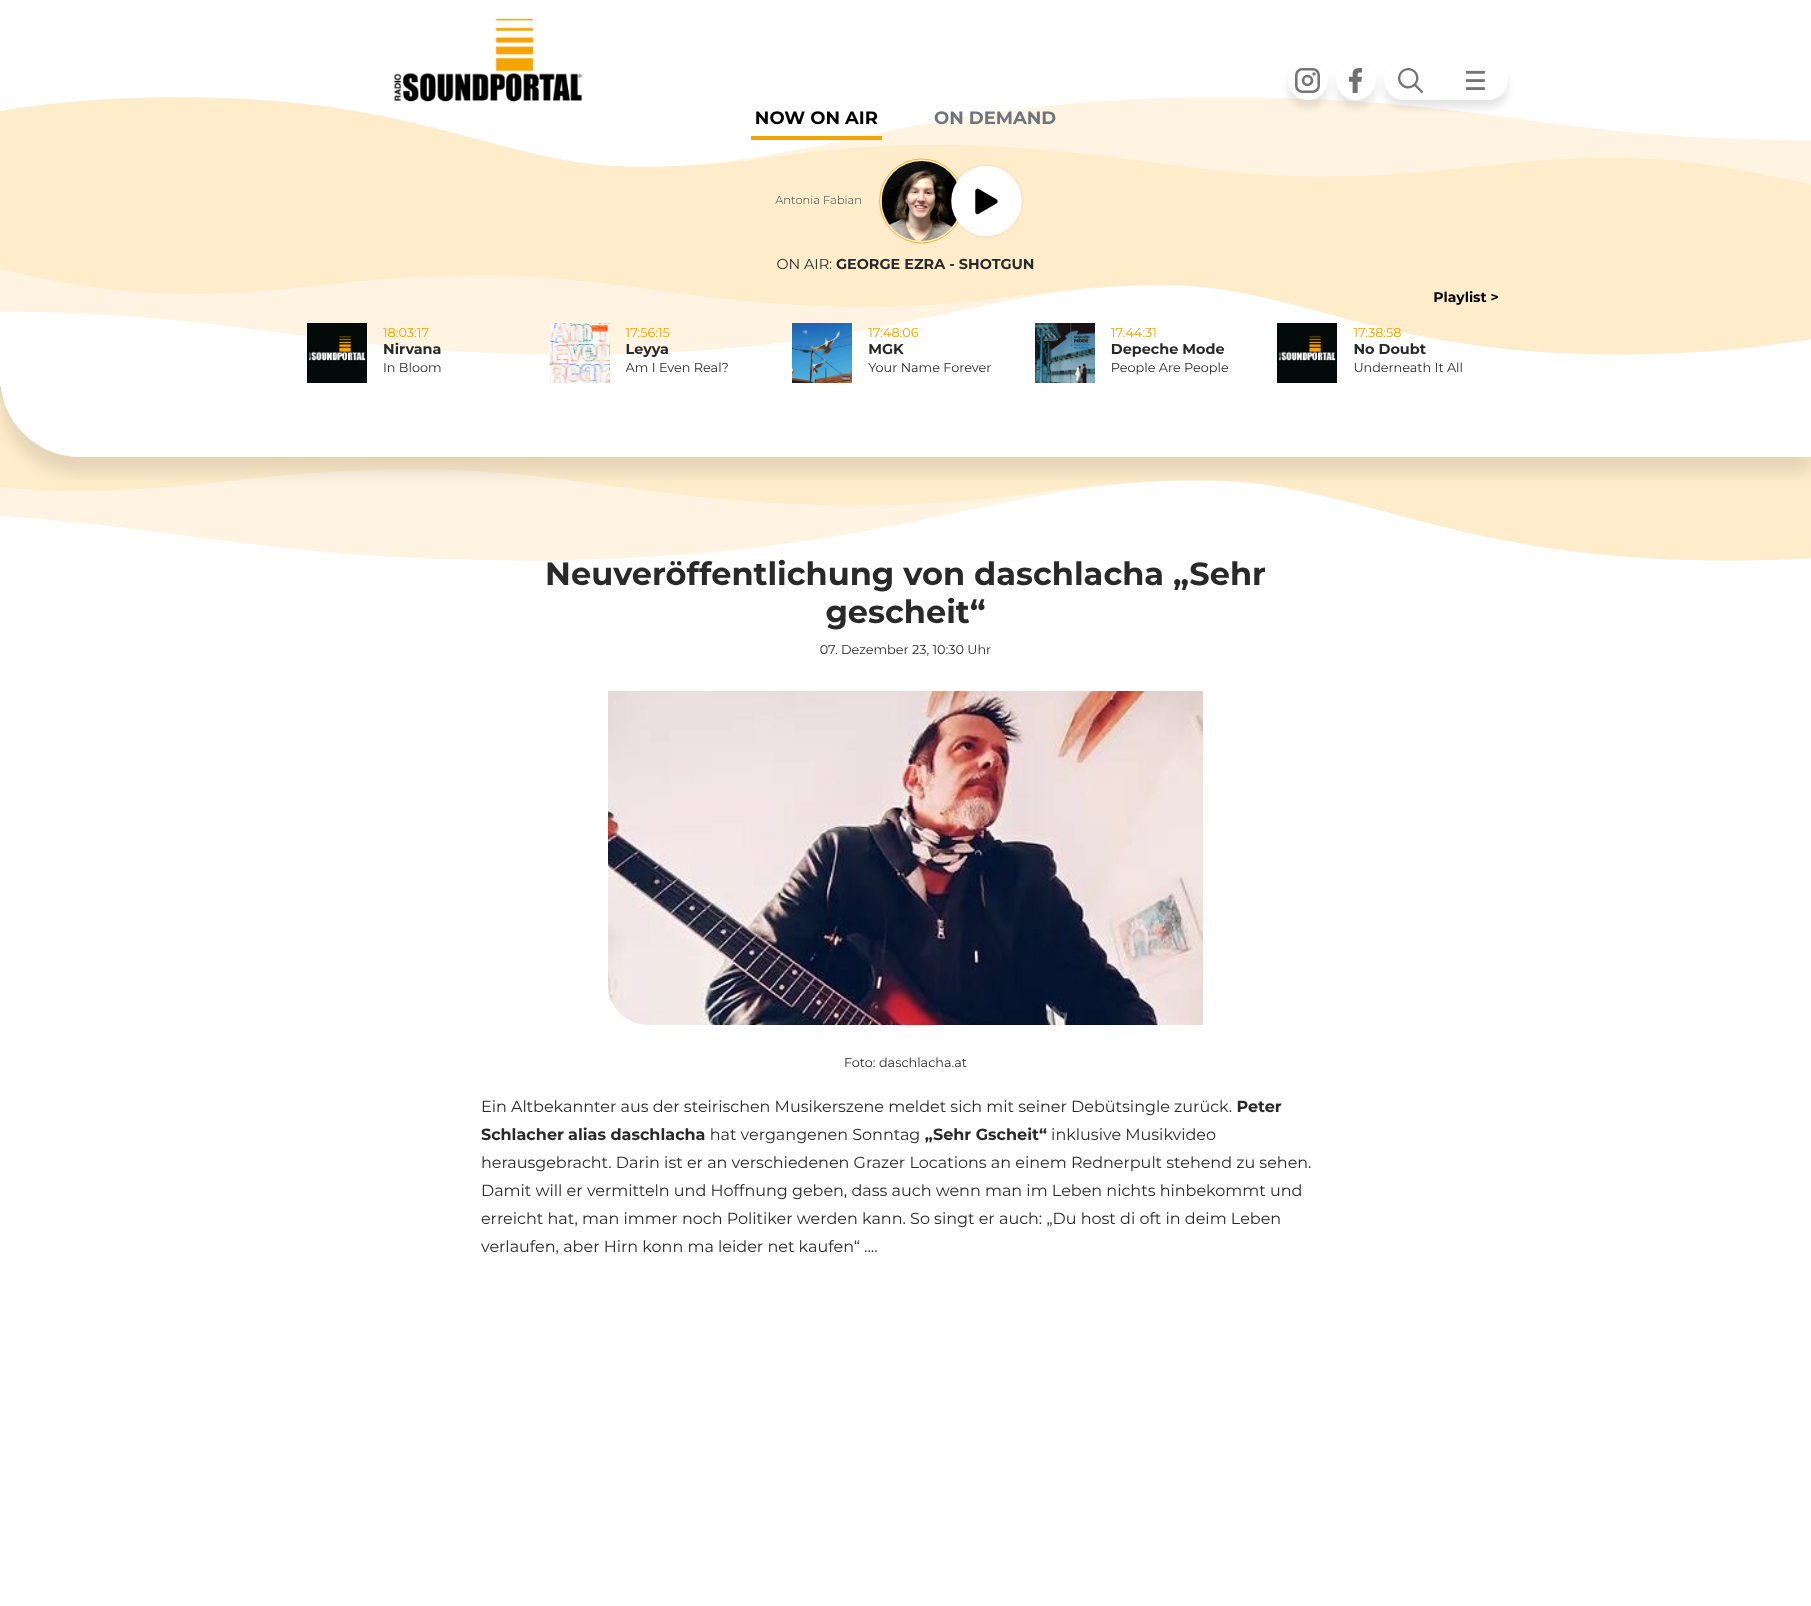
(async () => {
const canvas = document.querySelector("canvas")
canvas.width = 1811
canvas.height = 1606
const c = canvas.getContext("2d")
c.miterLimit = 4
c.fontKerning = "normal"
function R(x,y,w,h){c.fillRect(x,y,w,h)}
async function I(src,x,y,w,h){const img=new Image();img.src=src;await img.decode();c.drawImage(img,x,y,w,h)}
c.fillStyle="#fff"
R(0,0,1811,1606)
await I("1.png",0,18,1811,1237)
})()
